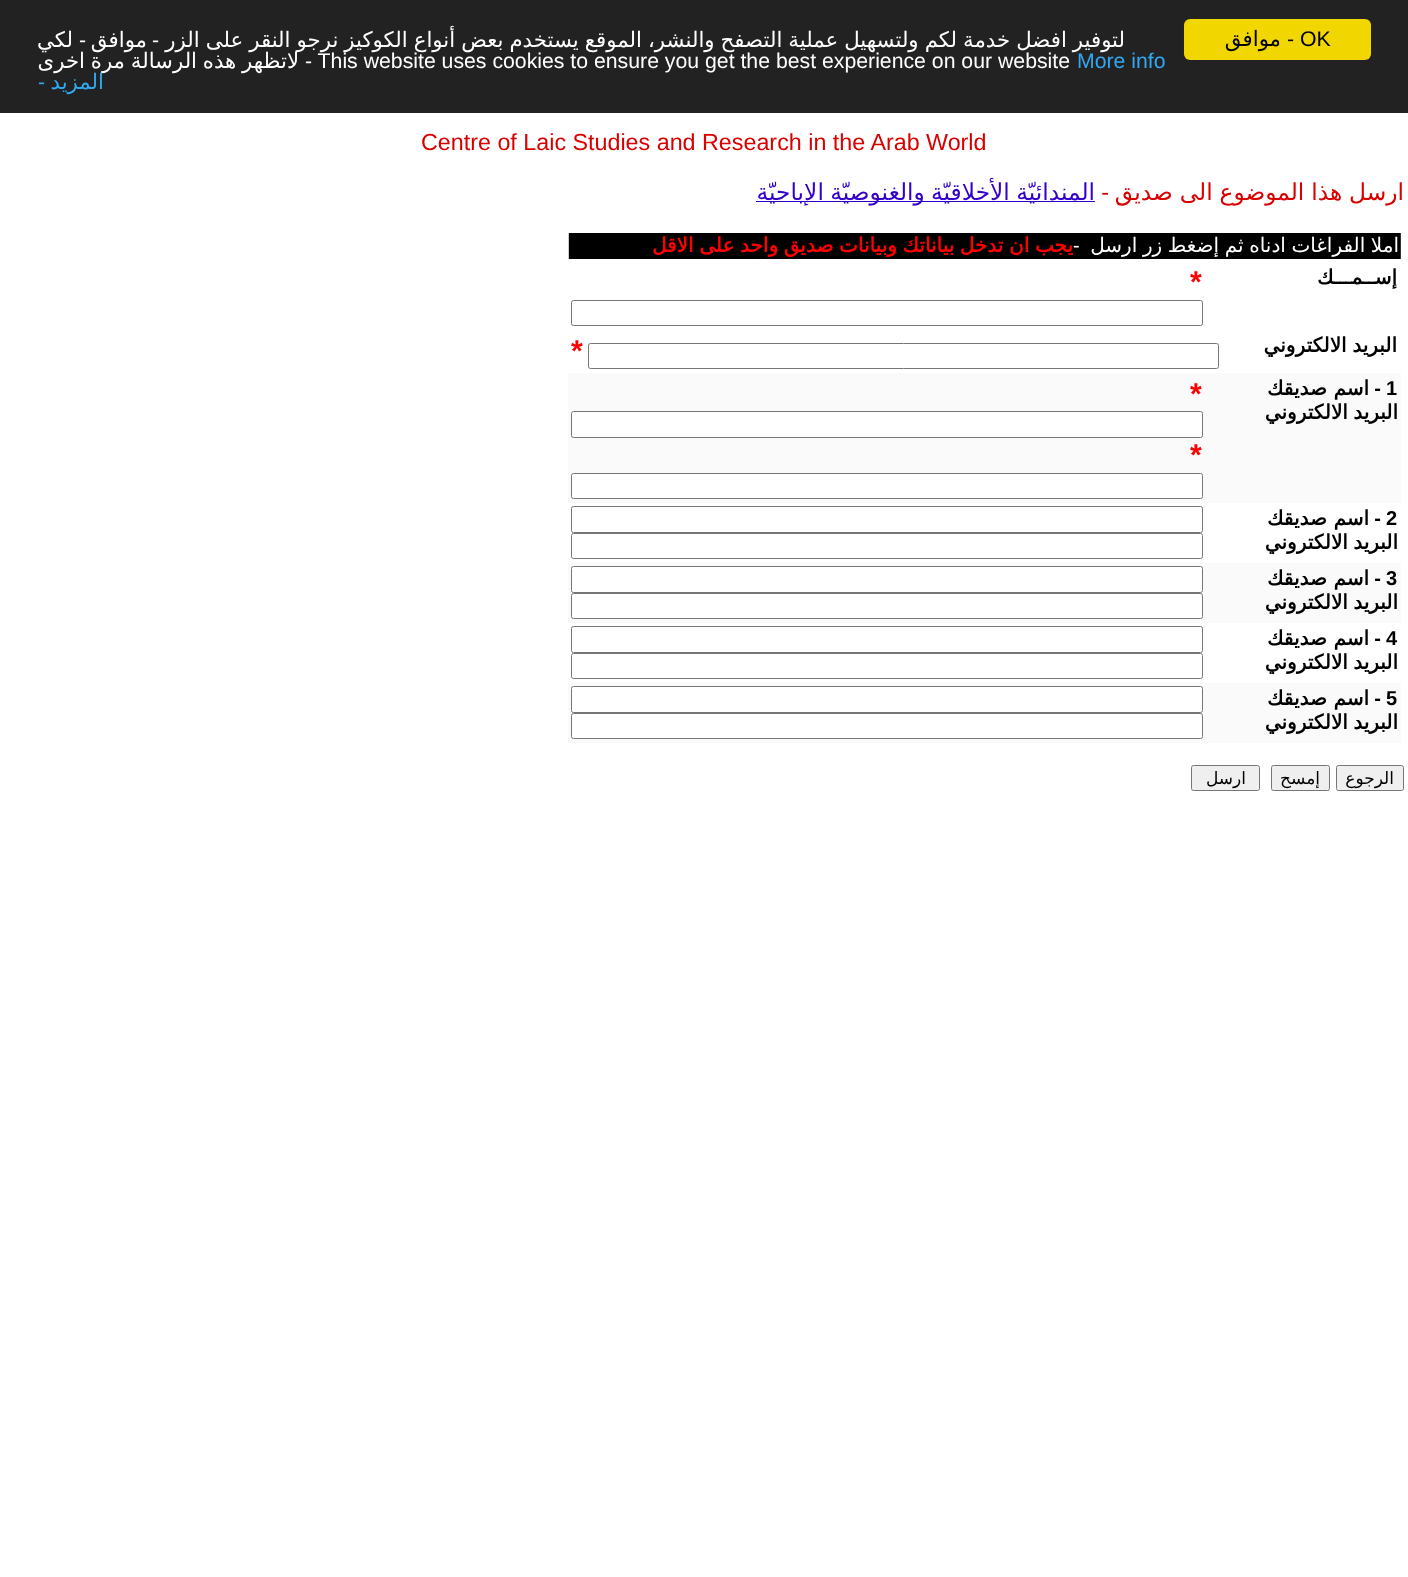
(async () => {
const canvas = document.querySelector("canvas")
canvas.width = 1408
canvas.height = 1577
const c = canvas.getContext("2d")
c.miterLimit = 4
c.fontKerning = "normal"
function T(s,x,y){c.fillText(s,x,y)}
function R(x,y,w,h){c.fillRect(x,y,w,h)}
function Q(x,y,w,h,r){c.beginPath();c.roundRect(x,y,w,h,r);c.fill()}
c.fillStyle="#fff"
R(0,0,1408,1577)
c.fillStyle="#222"
R(0,0,1408,113)
c.fillStyle="#f1d600"
Q(1184,19,187,41,6)
c.font="21.25px Liberation Sans"
c.fillStyle="#000"
T("- OK",1287,46)
c.direction="rtl"
c.font="21.25px DejaVu Sans"
T("موافق",1281,46)
c.wordSpacing="-0.7px"
c.fillStyle="#fff"
T("لتوفير افضل خدمة لكم ولتسهيل عملية التصفح والنشر، الموقع يستخدم بعض أنواع الكوكيز نرجو النقر على الزر",1125,47)
c.wordSpacing="0px"
c.font="21.25px Liberation Sans"
T("-",159,47)
c.font="21.25px DejaVu Sans"
T("موافق",147,47)
c.font="21.25px Liberation Sans"
T("-",86,47)
c.font="21.25px DejaVu Sans"
T("لكي",73,47)
c.direction="ltr"
c.font="21.25px Liberation Sans"
c.fillStyle="#31a8f0"
T("More info",1077,68)
c.fillStyle="#fff"
T("- This website uses cookies to ensure you get the best experience on our website",305,68)
c.wordSpacing="-1px"
c.direction="rtl"
c.font="21.25px DejaVu Sans"
T("لاتظهر هذه الرسالة مرة اخرى",299,68)
c.wordSpacing="0px"
c.fillStyle="#31a8f0"
T("المزيد",104,89)
c.direction="ltr"
c.font="21.25px Liberation Sans"
T("-",38,89)
c.font="23.3px Liberation Sans"
c.fillStyle="#d90000"
T("Centre of Laic Studies and Research in the Arab World",421,150)
c.wordSpacing="-0.5px"
c.direction="rtl"
c.font="23.3px DejaVu Sans"
T("ارسل هذا الموضوع الى صديق",1404,200)
c.wordSpacing="0px"
c.font="23.3px Liberation Sans"
T("-",1109,200)
c.fillStyle="#30c"
R(756,201,339,1)
c.wordSpacing="-1px"
c.font="23.3px DejaVu Sans"
T("المندائيّة الأخلاقيّة والغنوصيّة الإباحيّة",1095,200)
c.fillStyle="#000"
R(569,233,831,26)
c.fillStyle="#333"
R(1400,233,1,26)
c.fillStyle="#ccc"
R(568,233,1,26)
c.wordSpacing="-0.75px"
c.font="20px DejaVu Sans"
c.fillStyle="#fff"
T("املا الفراغات ادناه ثم",1399,252)
T("إضغط زر ارسل",1219,252)
c.wordSpacing="0px"
c.direction="ltr"
c.font="20px Liberation Sans"
T("-",1073,252)
c.wordSpacing="-0.75px"
c.direction="rtl"
c.font="bold 20px DejaVu Sans"
c.fillStyle="#f00"
T("يجب ان تدخل بياناتك وبيانات صديق واحد على الاقل",1073,252)
c.wordSpacing="0px"
c.fillStyle="#000"
T("إســمـــك",1397,284)
c.direction="ltr"
c.font="bold 30px Liberation Sans"
c.fillStyle="#f00"
T("*",1190,292)
c.beginPath()
c.roundRect(571.5,300.5,631,25,2)
c.strokeStyle="#767676"
c.stroke()
c.wordSpacing="-0.75px"
c.direction="rtl"
c.font="bold 20px DejaVu Sans"
c.fillStyle="#000"
T("البريد الالكتروني",1397,352)
c.beginPath()
c.roundRect(588.5,343.5,630,25,2)
c.stroke()
c.wordSpacing="0px"
c.direction="ltr"
c.font="bold 30px Liberation Sans"
c.fillStyle="#f00"
T("*",571,361)
c.fillStyle="#fafafa"
R(568,373,833,130)
c.font="bold 20px Liberation Sans"
c.fillStyle="#000"
T("1",1386,395)
c.direction="rtl"
T("-",1381,395)
c.font="bold 20px DejaVu Sans"
T("اسم صديقك",1369,395)
c.wordSpacing="-1px"
T("البريد الالكتروني",1398,419)
c.wordSpacing="0px"
c.direction="ltr"
c.font="bold 30px Liberation Sans"
c.fillStyle="#f00"
T("*",1190,404)
c.fillStyle="#fff"
c.beginPath()
c.roundRect(571.5,411.5,631,26,2)
c.fill()
c.stroke()
c.fillStyle="#f00"
T("*",1190,465)
c.fillStyle="#fff"
c.beginPath()
c.roundRect(571.5,473.5,631,25,2)
c.fill()
c.stroke()
c.font="bold 20px Liberation Sans"
c.fillStyle="#000"
T("2",1386,525)
c.direction="rtl"
T("-",1381,525)
c.font="bold 20px DejaVu Sans"
T("اسم صديقك",1369,525)
c.wordSpacing="-1px"
T("البريد الالكتروني",1398,549)
c.beginPath()
c.roundRect(571.5,506.5,631,26,2)
c.stroke()
c.beginPath()
c.roundRect(571.5,533.5,631,25,2)
c.stroke()
c.fillStyle="#fafafa"
R(568,563,833,60)
c.wordSpacing="0px"
c.direction="ltr"
c.font="bold 20px Liberation Sans"
c.fillStyle="#000"
T("3",1386,585)
c.direction="rtl"
T("-",1381,585)
c.font="bold 20px DejaVu Sans"
T("اسم صديقك",1369,585)
c.wordSpacing="-1px"
T("البريد الالكتروني",1398,609)
c.fillStyle="#fff"
c.beginPath()
c.roundRect(571.5,566.5,631,26,2)
c.fill()
c.stroke()
c.beginPath()
c.roundRect(571.5,593.5,631,25,2)
c.fill()
c.stroke()
c.wordSpacing="0px"
c.direction="ltr"
c.font="bold 20px Liberation Sans"
c.fillStyle="#000"
T("4",1386,645)
c.direction="rtl"
T("-",1381,645)
c.font="bold 20px DejaVu Sans"
T("اسم صديقك",1369,645)
c.wordSpacing="-1px"
T("البريد الالكتروني",1398,669)
c.beginPath()
c.roundRect(571.5,626.5,631,26,2)
c.stroke()
c.beginPath()
c.roundRect(571.5,653.5,631,25,2)
c.stroke()
c.fillStyle="#fafafa"
R(568,683,833,60)
c.wordSpacing="0px"
c.direction="ltr"
c.font="bold 20px Liberation Sans"
c.fillStyle="#000"
T("5",1386,705)
c.direction="rtl"
T("-",1381,705)
c.font="bold 20px DejaVu Sans"
T("اسم صديقك",1369,705)
c.wordSpacing="-1px"
T("البريد الالكتروني",1398,729)
c.fillStyle="#fff"
c.beginPath()
c.roundRect(571.5,686.5,631,26,2)
c.fill()
c.stroke()
c.beginPath()
c.roundRect(571.5,713.5,631,25,2)
c.fill()
c.stroke()
c.fillStyle="#efefef"
c.beginPath()
c.roundRect(1336.5,765.5,67,25,2)
c.fill()
c.stroke()
c.wordSpacing="0px"
c.font="17px DejaVu Sans"
c.fillStyle="#000"
T("الرجوع",1394,784)
c.fillStyle="#efefef"
c.beginPath()
c.roundRect(1271.5,765.5,58,25,2)
c.fill()
c.stroke()
c.fillStyle="#000"
T("إمسح",1320,784)
c.fillStyle="#efefef"
c.beginPath()
c.roundRect(1191.5,765.5,68,25,2)
c.fill()
c.stroke()
c.fillStyle="#000"
T("ارسل",1246,784)
})()
